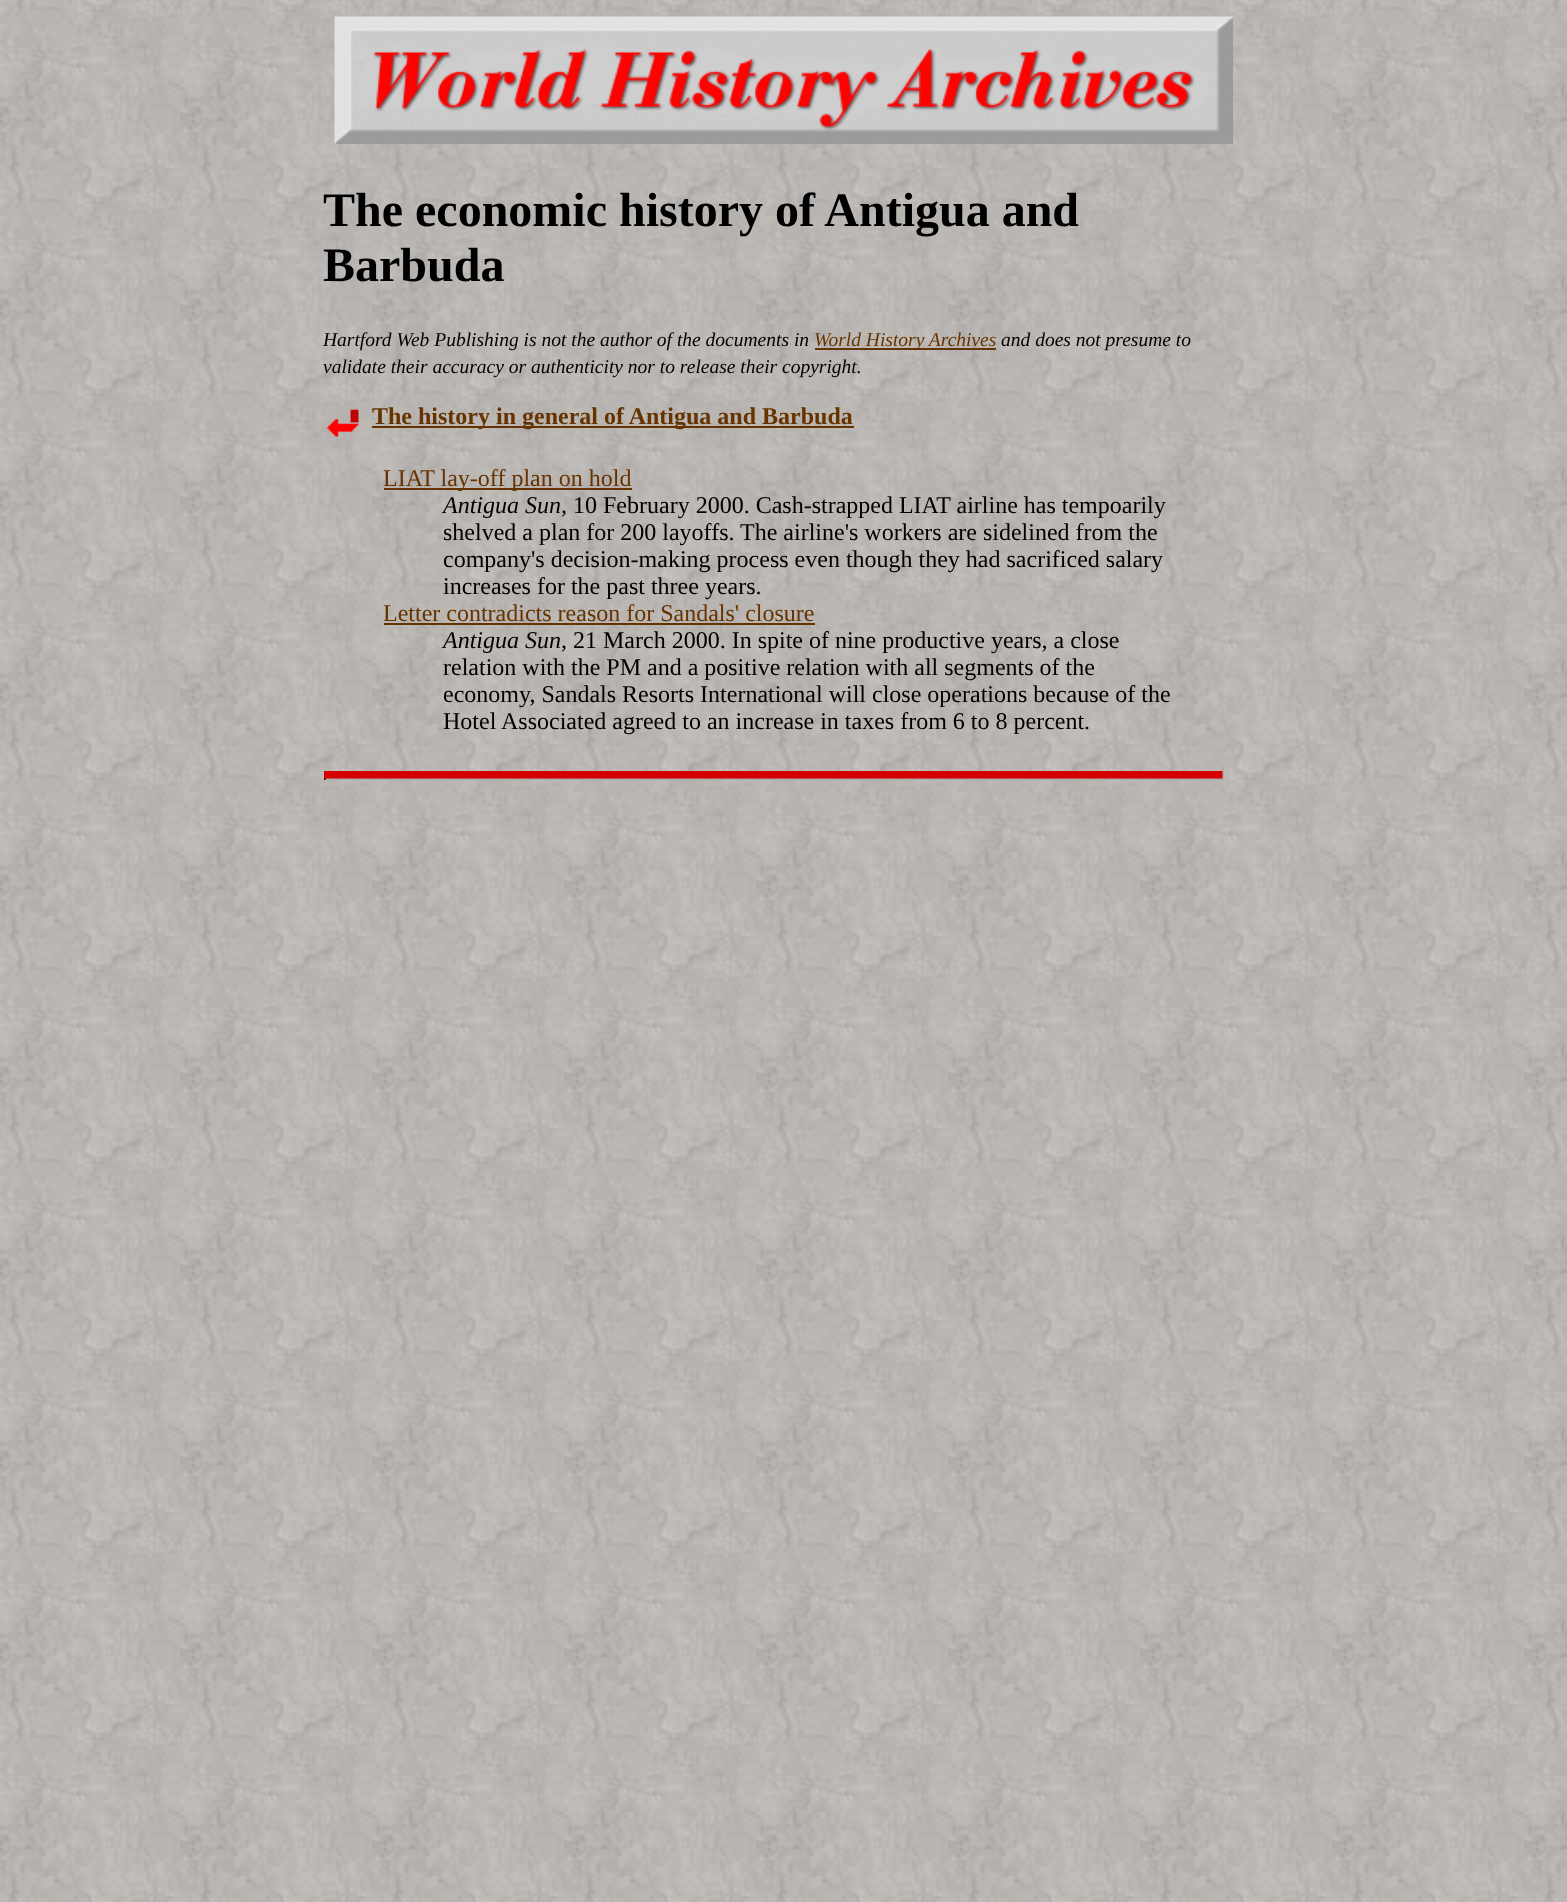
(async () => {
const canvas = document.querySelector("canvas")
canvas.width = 1567
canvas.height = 1902
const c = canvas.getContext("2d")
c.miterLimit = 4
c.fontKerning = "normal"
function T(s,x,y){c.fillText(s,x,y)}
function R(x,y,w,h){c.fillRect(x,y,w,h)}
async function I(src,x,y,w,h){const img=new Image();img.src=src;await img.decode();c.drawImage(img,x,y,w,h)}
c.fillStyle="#fff"
R(0,0,1567,1902)
await I("1.png",0,0,1567,1902)
await I("2.png",334,16,899,128)
c.font="bold 48px Liberation Serif"
c.fillStyle="#000"
T("The economic history of Antigua and",323,226)
T("Barbuda",323,281)
c.font="italic 19.5px Liberation Serif"
T("Hartford Web Publishing is not the author of the documents in",323,346)
c.fillStyle="#630"
R(815,348,181,2)
T("World History Archives",814,346)
c.fillStyle="#000"
T("and does not presume to",1001,346)
T("validate their accuracy or authenticity nor to release their copyright.",323,373)
await I("3.png",326,409,33,28)
c.fillStyle="#630"
R(372,426,482,2)
c.font="bold 24px Liberation Serif"
T("The history in general of Antigua and Barbuda",372,424)
R(384,488,248,2)
c.font="24px Liberation Serif"
T("LIAT lay-off plan on hold",383,486)
c.font="italic 24px Liberation Serif"
c.fillStyle="#000"
T("Antigua Sun,",443,513)
c.font="24px Liberation Serif"
T("10 February 2000. Cash-strapped LIAT airline has tempoarily",573,513)
T("shelved a plan for 200 layoffs. The airline's workers are sidelined from the",443,540)
T("company's decision-making process even though they had sacrificed salary",443,567)
T("increases for the past three years.",443,594)
c.fillStyle="#630"
T("Letter contradicts reason for Sandals' closure",383,621)
R(384,623,431,2)
c.font="italic 24px Liberation Serif"
c.fillStyle="#000"
T("Antigua Sun,",443,648)
c.font="24px Liberation Serif"
T("21 March 2000. In spite of nine productive years, a close",573,648)
T("relation with the PM and a positive relation with all segments of the",443,675)
T("economy, Sandals Resorts International will close operations because of the",443,702)
T("Hotel Associated agreed to an increase in taxes from 6 to 8 percent.",443,729)
await I("4.png",324,771,900,9)
})()
